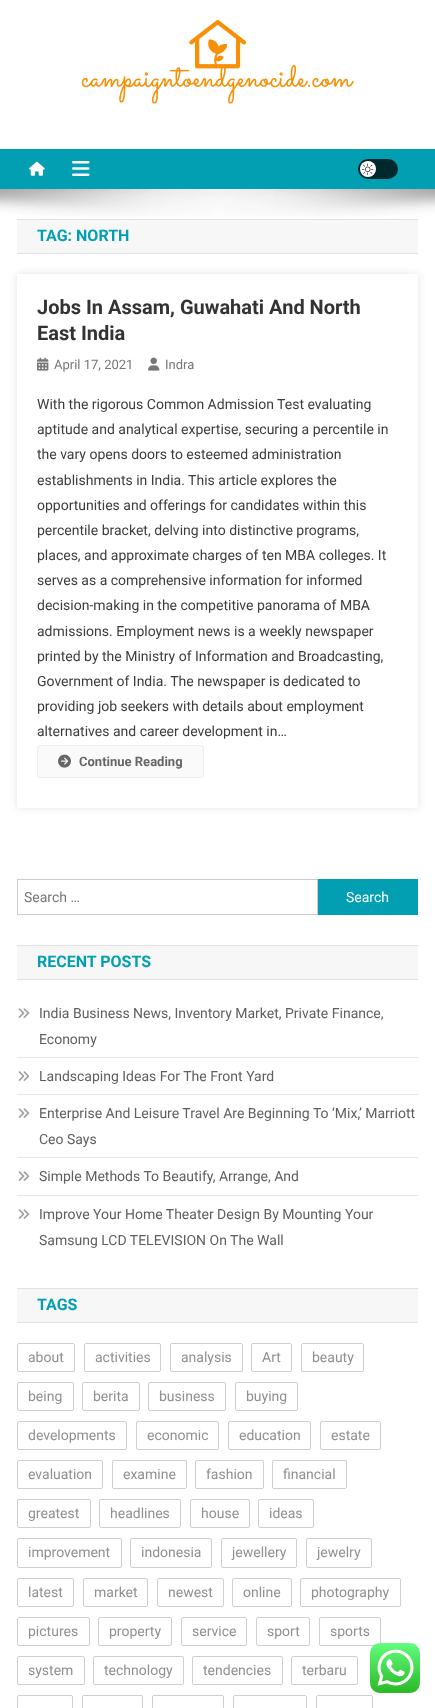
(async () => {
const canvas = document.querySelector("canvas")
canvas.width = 435
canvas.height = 1708
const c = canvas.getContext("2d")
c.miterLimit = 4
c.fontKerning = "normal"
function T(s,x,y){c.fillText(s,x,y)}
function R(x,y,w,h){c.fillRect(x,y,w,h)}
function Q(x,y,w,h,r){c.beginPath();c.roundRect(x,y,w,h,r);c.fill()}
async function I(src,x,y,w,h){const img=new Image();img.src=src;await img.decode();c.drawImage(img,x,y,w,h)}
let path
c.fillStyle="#fff"
R(0,0,435,1708)
await I("1.png",81,20,273,84)
c.fillStyle="#029fb2"
R(0,149,435,40)
await I("2.png",29,161,16,15)
await I("3.png",72,161,18,15)
c.fillStyle="#01282d"
Q(358,159,40,20,10)
c.fillStyle="#fff"
c.beginPath()
c.arc(368,169,8,0,7)
c.fill()
await I("4.png",362,163,12,12)
await I("5.png",0,189,435,28)
c.fillStyle="#f7f7f7"
R(17,220,401,33)
c.fillStyle="#e1e1e1"
R(17,219,401,1)
R(17,253,401,1)
c.font="bold 16px Roboto"
c.fillStyle="#029fb2"
T("TAG: NORTH",37,241)
c.save()
path = new Path2D("M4 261h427v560h-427zm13 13h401v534h-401z")
c.clip(path,"evenodd")
c.fillStyle="#0000001a"
c.filter="blur(4px)"
c.beginPath()
c.rect(17,274,401,534)
c.fill()
c.filter="none"
c.restore()
c.font="bold 20px Roboto"
c.fillStyle="#333"
T("Jobs In Assam, Guwahati And North",37,314)
T("East India",37,340)
await I("6.png",37,357,12,14)
c.font="13px Roboto"
c.fillStyle="#767676"
T("April 17, 2021",54,369)
await I("7.png",148,357,12,14)
T("Indra",165,369)
c.font="14px Roboto"
c.fillStyle="#3d3d3d"
T("With the rigorous Common Admission Test evaluating",37,409)
T("aptitude and analytical expertise, securing a percentile in",37,434)
T("the vary opens doors to esteemed administration",37,459)
T("establishments in India. This article explores the",37,485)
T("opportunities and offerings for candidates within this",37,510)
T("percentile bracket, delving into distinctive programs,",37,535)
T("places, and approximate charges of ten MBA colleges. It",37,560)
T("serves as a comprehensive information for informed",37,585)
T("decision-making in the competitive panorama of MBA",37,610)
T("admissions. Employment news is a weekly newspaper",37,636)
T("printed by the Ministry of Information and Broadcasting,",37,661)
T("Government of India. The newspaper is dedicated to",37,686)
T("providing job seekers with details about employment",37,711)
T("alternatives and career development in…",37,736)
c.fillStyle="#fafafa"
c.beginPath()
c.roundRect(37.5,745.5,166,32,2.5)
c.fill()
c.strokeStyle="#eee"
c.stroke()
await I("8.png",58,754,13,14)
c.font="bold 13px Roboto"
c.fillStyle="#666"
T("Continue Reading",79,766)
c.strokeStyle="#ccc"
c.strokeRect(17.5,879.5,300,35)
c.font="14px Roboto"
c.fillStyle="#767676"
T("Search …",24,902)
c.fillStyle="#029fb2"
R(318,879,100,36)
c.fillStyle="#fff"
T("Search",346,902)
c.fillStyle="#f7f7f7"
R(17,946,401,33)
c.fillStyle="#e1e1e1"
R(17,945,401,1)
R(17,979,401,1)
c.font="bold 16px Roboto"
c.fillStyle="#029fb2"
T("RECENT POSTS",37,967)
c.fillStyle="#e6e6e6"
R(17,1057,401,1)
await I("9.png",18,1008,12,10)
c.font="14px Roboto"
c.fillStyle="#5f5f5f"
T("India Business News, Inventory Market, Private Finance,",39,1018)
T("Economy",39,1044)
c.fillStyle="#e6e6e6"
R(17,1094,401,1)
await I("9.png",18,1071,12,10)
c.fillStyle="#5f5f5f"
T("Landscaping Ideas For The Front Yard",39,1081)
c.fillStyle="#e6e6e6"
R(17,1157,401,1)
await I("9.png",18,1108,12,10)
c.fillStyle="#5f5f5f"
T("Enterprise And Leisure Travel Are Beginning To ‘Mix,’ Marriott",39,1118)
T("Ceo Says",39,1144)
c.fillStyle="#e6e6e6"
R(17,1195,401,1)
await I("9.png",18,1171,12,10)
c.fillStyle="#5f5f5f"
T("Simple Methods To Beautify, Arrange, And",39,1181)
await I("9.png",18,1209,12,10)
T("Improve Your Home Theater Design By Mounting Your",39,1219)
T("Samsung LCD TELEVISION On The Wall",39,1245)
c.fillStyle="#f7f7f7"
R(17,1289,401,33)
c.fillStyle="#e1e1e1"
R(17,1288,401,1)
R(17,1322,401,1)
c.font="bold 16px Roboto"
c.fillStyle="#029fb2"
T("TAGS",37,1310)
c.beginPath()
c.roundRect(17.5,1343.5,57,28,1.5)
c.strokeStyle="#cfcfcf"
c.stroke()
c.font="14px Roboto"
c.fillStyle="#909090"
T("about",28,1362)
c.beginPath()
c.roundRect(84.5,1343.5,76,28,1.5)
c.stroke()
T("activities",95,1362)
c.beginPath()
c.roundRect(170.5,1343.5,72,28,1.5)
c.stroke()
T("analysis",181,1362)
c.beginPath()
c.roundRect(251.5,1343.5,40,28,1.5)
c.stroke()
T("Art",262,1362)
c.beginPath()
c.roundRect(301.5,1343.5,62,28,1.5)
c.stroke()
T("beauty",312,1362)
c.beginPath()
c.roundRect(17.5,1382.5,56,28,1.5)
c.stroke()
T("being",28,1401)
c.beginPath()
c.roundRect(82.5,1382.5,57,28,1.5)
c.stroke()
T("berita",93,1401)
c.beginPath()
c.roundRect(148.5,1382.5,77,28,1.5)
c.stroke()
T("business",159,1401)
c.beginPath()
c.roundRect(235.5,1382.5,62,28,1.5)
c.stroke()
T("buying",246,1401)
c.beginPath()
c.roundRect(17.5,1421.5,109,28,1.5)
c.stroke()
T("developments",28,1440)
c.beginPath()
c.roundRect(136.5,1421.5,82,28,1.5)
c.stroke()
T("economic",147,1440)
c.beginPath()
c.roundRect(228.5,1421.5,82,28,1.5)
c.stroke()
T("education",239,1440)
c.beginPath()
c.roundRect(320.5,1421.5,60,28,1.5)
c.stroke()
T("estate",331,1440)
c.beginPath()
c.roundRect(17.5,1460.5,85,28,1.5)
c.stroke()
T("evaluation",28,1479)
c.beginPath()
c.roundRect(112.5,1460.5,74,28,1.5)
c.stroke()
T("examine",123,1479)
c.beginPath()
c.roundRect(195.5,1460.5,68,28,1.5)
c.stroke()
T("fashion",206,1479)
c.beginPath()
c.roundRect(272.5,1460.5,74,28,1.5)
c.stroke()
T("financial",283,1479)
c.beginPath()
c.roundRect(17.5,1499.5,73,28,1.5)
c.stroke()
T("greatest",28,1518)
c.beginPath()
c.roundRect(99.5,1499.5,81,28,1.5)
c.stroke()
T("headlines",110,1518)
c.beginPath()
c.roundRect(190.5,1499.5,59,28,1.5)
c.stroke()
T("house",201,1518)
c.beginPath()
c.roundRect(258.5,1499.5,55,28,1.5)
c.stroke()
T("ideas",269,1518)
c.beginPath()
c.roundRect(17.5,1538.5,104,29,1.5)
c.stroke()
T("improvement",28,1557)
c.beginPath()
c.roundRect(130.5,1538.5,81,29,1.5)
c.stroke()
T("indonesia",141,1557)
c.beginPath()
c.roundRect(221.5,1538.5,75,29,1.5)
c.stroke()
T("jewellery",232,1557)
c.beginPath()
c.roundRect(306.5,1538.5,65,29,1.5)
c.stroke()
T("jewelry",317,1557)
c.beginPath()
c.roundRect(17.5,1578.5,56,28,1.5)
c.stroke()
T("latest",28,1597)
c.beginPath()
c.roundRect(83.5,1578.5,64,28,1.5)
c.stroke()
T("market",94,1597)
c.beginPath()
c.roundRect(157.5,1578.5,66,28,1.5)
c.stroke()
T("newest",168,1597)
c.beginPath()
c.roundRect(232.5,1578.5,59,28,1.5)
c.stroke()
T("online",243,1597)
c.beginPath()
c.roundRect(300.5,1578.5,100,28,1.5)
c.stroke()
T("photography",311,1597)
c.beginPath()
c.roundRect(17.5,1617.5,72,28,1.5)
c.stroke()
T("pictures",28,1636)
c.beginPath()
c.roundRect(98.5,1617.5,73,28,1.5)
c.stroke()
T("property",109,1636)
c.beginPath()
c.roundRect(181.5,1617.5,65,28,1.5)
c.stroke()
T("service",192,1636)
c.beginPath()
c.roundRect(256.5,1617.5,53,28,1.5)
c.stroke()
T("sport",267,1636)
c.beginPath()
c.roundRect(319.5,1617.5,61,28,1.5)
c.stroke()
T("sports",330,1636)
c.beginPath()
c.roundRect(17.5,1656.5,67,28,1.5)
c.stroke()
T("system",28,1675)
c.beginPath()
c.roundRect(93.5,1656.5,90,28,1.5)
c.stroke()
T("technology",104,1675)
c.beginPath()
c.roundRect(192.5,1656.5,90,28,1.5)
c.stroke()
T("tendencies",203,1675)
c.beginPath()
c.roundRect(291.5,1656.5,66,28,1.5)
c.stroke()
T("terbaru",302,1675)
c.beginPath()
c.roundRect(17.5,1695.5,55,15,1.5)
c.stroke()
c.beginPath()
c.roundRect(82.5,1695.5,60,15,1.5)
c.stroke()
c.beginPath()
c.roundRect(152.5,1695.5,71,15,1.5)
c.stroke()
c.beginPath()
c.roundRect(233.5,1695.5,73,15,1.5)
c.stroke()
c.beginPath()
c.roundRect(316.5,1695.5,56,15,1.5)
c.stroke()
await I("10.png",370,1643,50,50)
})()
